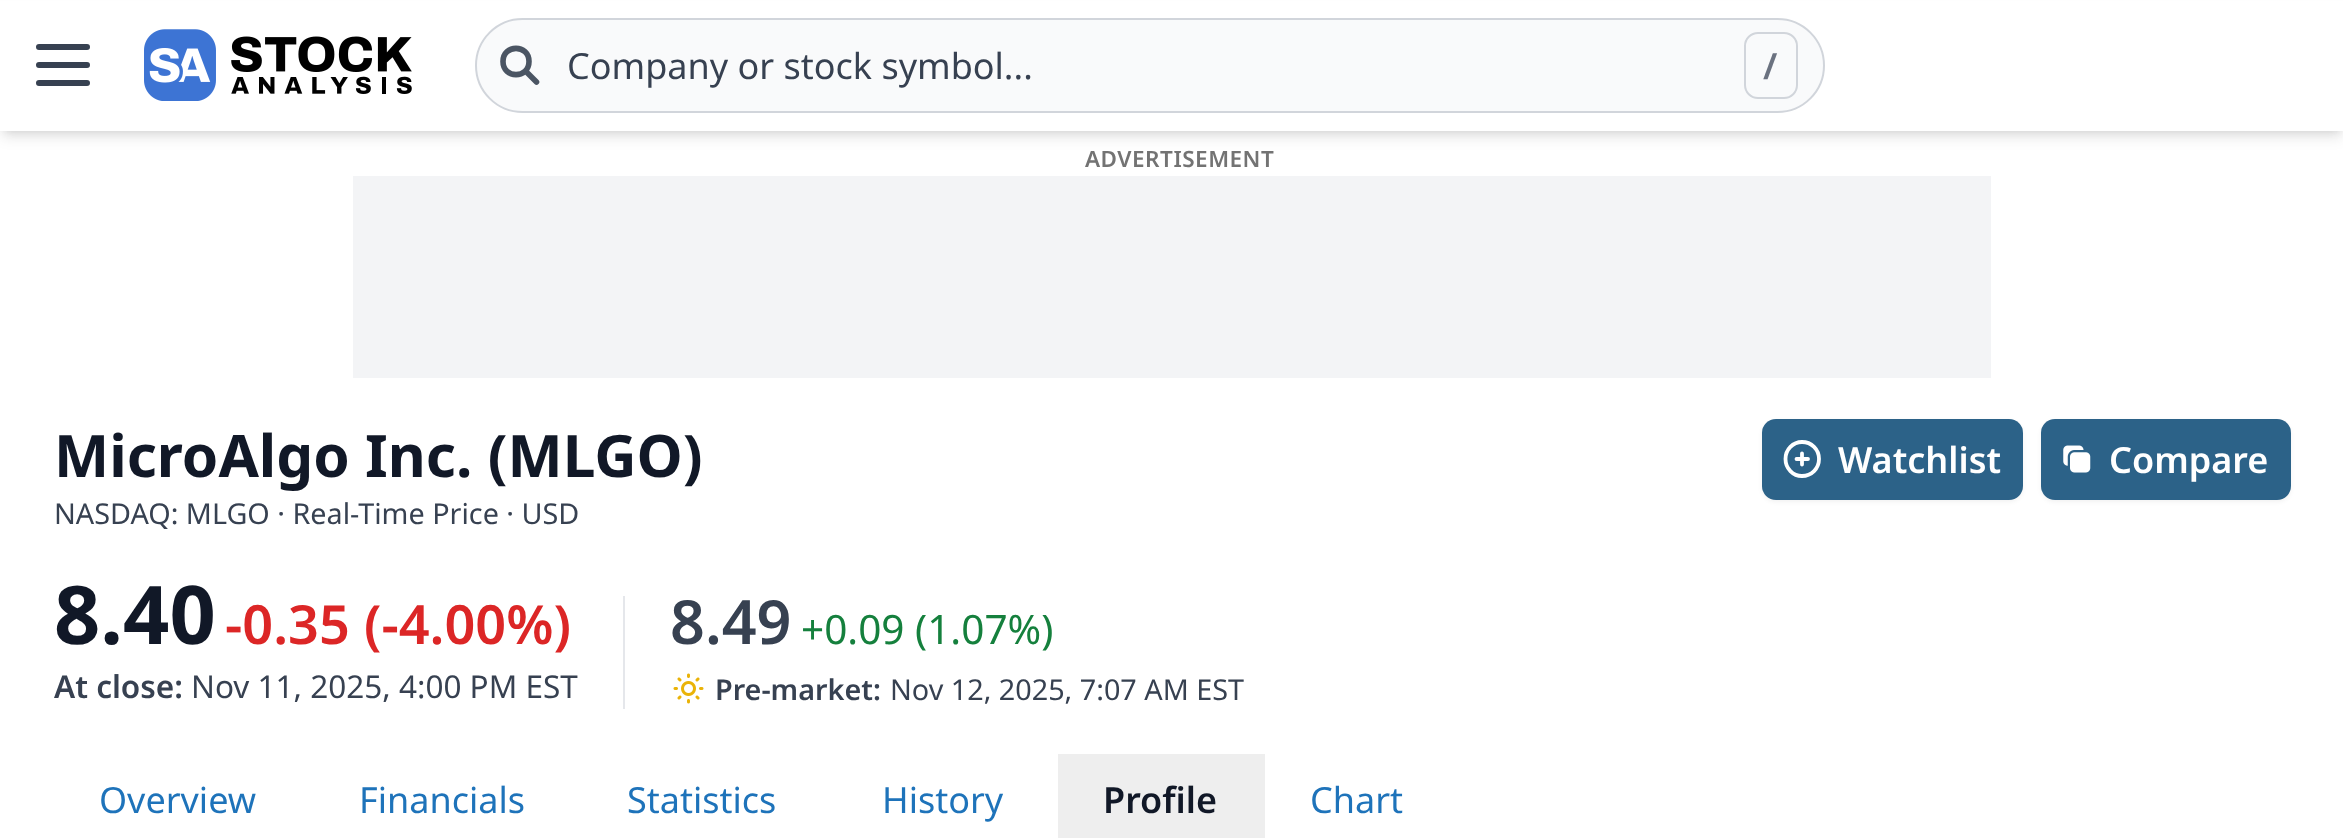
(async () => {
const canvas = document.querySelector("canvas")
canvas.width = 2343
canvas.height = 838
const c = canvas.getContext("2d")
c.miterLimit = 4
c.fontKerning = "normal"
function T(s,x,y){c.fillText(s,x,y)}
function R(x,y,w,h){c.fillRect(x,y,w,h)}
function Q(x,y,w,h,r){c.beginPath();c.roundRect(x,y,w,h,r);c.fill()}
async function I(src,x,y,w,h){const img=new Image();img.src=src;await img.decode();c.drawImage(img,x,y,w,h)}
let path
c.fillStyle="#fff"
R(0,0,2343,838)
c.fillStyle="#0000001a"
c.filter="blur(4.5px)"
c.beginPath()
c.rect(5,9,2335,122)
c.fill()
c.filter="none"
c.filter="blur(7px)"
c.beginPath()
c.rect(2,11,2340,126)
c.fill()
c.filter="none"
c.fillStyle="#fff"
R(0,1,2343,130)
path = new Path2D("M39 47h48m-48 18h48m-48 18h48")
c.strokeStyle="#374151"
c.lineWidth=6
c.lineCap="round"
c.lineJoin="round"
c.stroke(path)
await I("1.png",144,29,268,72)
c.fillStyle="#f9fafb"
c.beginPath()
c.roundRect(476,19,1348,93,46.5)
c.fill()
c.strokeStyle="#d1d5db"
c.lineWidth=2
c.lineJoin="miter"
c.stroke()
path = new Path2D("M536.5 82l-11-11m3.5-9.5c0 17.5-26 17.5-26 0c0-17.5 26-17.5 26 0z")
c.strokeStyle="#4b5563"
c.lineWidth=5.6
c.lineJoin="round"
c.stroke(path)
c.font="36px Noto Sans"
c.fillStyle="#374151"
T("Company or stock symbol...",567,79)
c.beginPath()
c.roundRect(1745,33,52,65,13)
c.strokeStyle="#d1d5db"
c.lineWidth=2
c.lineJoin="miter"
c.stroke()
c.font="600 36px Noto Sans"
c.fillStyle="#6b7280"
T("/",1763,79)
c.letterSpacing="0.5px"
c.font="600 22.5px Noto Sans"
c.fillStyle="#737373"
T("ADVERTISEMENT",1085,167)
c.fillStyle="#f3f4f6"
R(353,176,1638,202)
c.letterSpacing="0px"
c.font="bold 58.5px Noto Sans"
c.fillStyle="#111827"
T("MicroAlgo Inc. (MLGO)",54,477)
c.font="28.75px Noto Sans"
c.fillStyle="#374151"
T("NASDAQ: MLGO · Real-Time Price · USD",54,524)
c.fillStyle="#0000000d"
c.filter="blur(2px)"
c.beginPath()
c.roundRect(1762,421,261,81,14)
c.fill()
c.filter="none"
c.fillStyle="#2c6288"
Q(1762,419,261,81,14)
path = new Path2D("M1802 453.5v11m6-5.5h-11.5m22.5 0c0 9.5-7.5 17-17 17c-9 0-16.5-7.5-16.5-17c0-9.5 7.5-17 16.5-17c9.5 0 17 7.5 17 17z")
c.strokeStyle="#fff"
c.lineWidth=3.8
c.lineJoin="round"
c.stroke(path)
c.font="600 36px Noto Sans"
c.fillStyle="#fff"
T("Watchlist",1838,473)
c.fillStyle="#0000000d"
c.filter="blur(2px)"
c.beginPath()
c.roundRect(2041,421,250,81,14)
c.fill()
c.filter="none"
c.fillStyle="#2c6288"
Q(2041,419,250,81,14)
await I("2.png",2063,445,28,28)
c.fillStyle="#fff"
T("Compare",2109,473)
c.font="bold 81px Noto Sans"
c.fillStyle="#111827"
T("8.40",54,644)
c.font="600 54px Noto Sans"
c.fillStyle="#dc2626"
T("-0.35 (-4.00%)",225,644)
c.font="600 31.5px Noto Sans"
c.fillStyle="#374151"
T("At close:",54,698)
c.font="31.5px Noto Sans"
T("Nov 11, 2025, 4:00 PM EST",191,698)
c.fillStyle="#e5e7eb"
R(623,596,2,113)
c.font="600 61px Noto Sans"
c.fillStyle="#374151"
T("8.49",670,644)
c.font="40.5px Noto Sans"
c.fillStyle="#15803d"
T("+0.09 (1.07%)",801,644)
await I("3.png",673,673,31,31)
c.font="600 28.75px Noto Sans"
c.fillStyle="#374151"
T("Pre-market:",715,700)
c.font="28.75px Noto Sans"
T("Nov 12, 2025, 7:07 AM EST",890,700)
c.font="36px Noto Sans"
c.fillStyle="#1e73ba"
T("Overview",99,813)
T("Financials",359,813)
T("Statistics",627,813)
T("History",882,813)
c.fillStyle="#eee"
R(1058,754,207,84)
c.font="600 36px Noto Sans"
c.fillStyle="#111827"
T("Profile",1103,813)
c.font="36px Noto Sans"
c.fillStyle="#1e73ba"
T("Chart",1310,813)
})()
